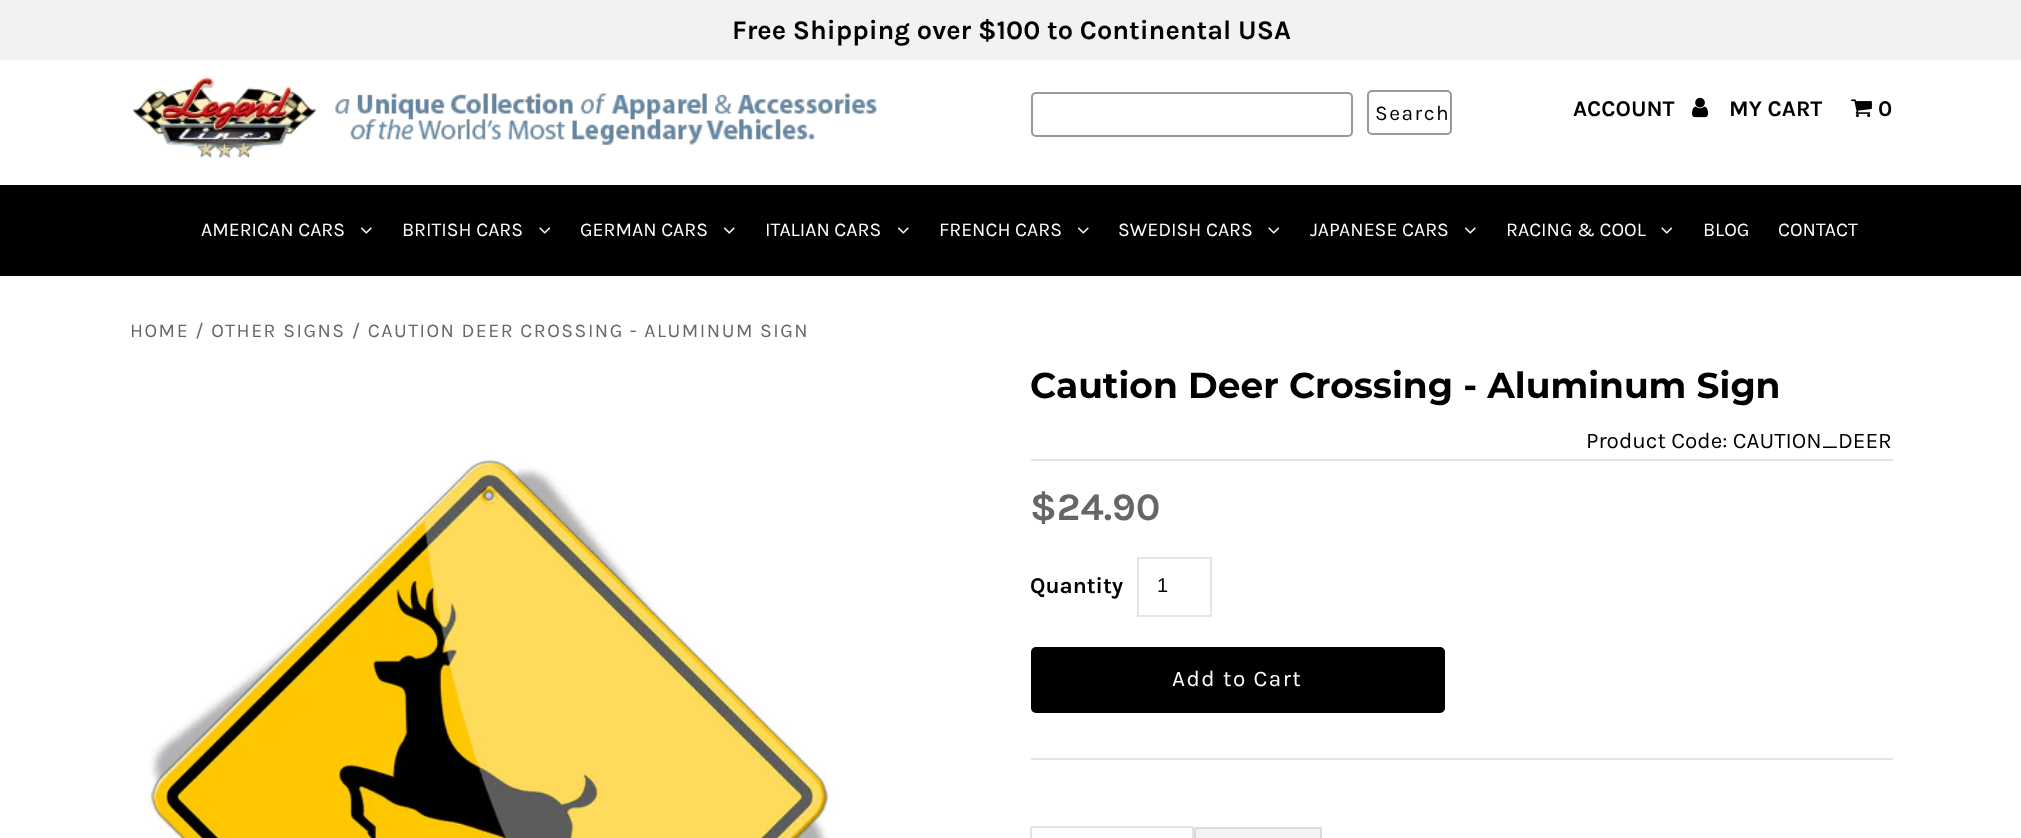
(async () => {
const canvas = document.querySelector("canvas")
canvas.width = 2021
canvas.height = 838
const c = canvas.getContext("2d")
c.miterLimit = 4
c.fontKerning = "normal"
function T(s,x,y){c.fillText(s,x,y)}
function R(x,y,w,h){c.fillRect(x,y,w,h)}
function Q(x,y,w,h,r){c.beginPath();c.roundRect(x,y,w,h,r);c.fill()}
async function I(src,x,y,w,h){const img=new Image();img.src=src;await img.decode();c.drawImage(img,x,y,w,h)}
let path
c.fillStyle="#fff"
R(0,0,2021,838)
c.fillStyle="#f2f2f2"
R(0,0,2021,60)
c.font="bold 27px Karla"
c.fillStyle="#000"
T("Free Shipping over $100 to Continental USA",732,39)
await I("1.png",133,76,744,82)
c.beginPath()
c.roundRect(1032,93,320,43,4)
c.strokeStyle="#999"
c.lineWidth=2
c.stroke()
c.beginPath()
c.roundRect(1368,91,83,43,4)
c.stroke()
c.letterSpacing="1.5px"
c.font="21px Karla"
T("Search",1375,120)
c.letterSpacing="0px"
c.font="bold 22.5px Karla"
T("ACCOUNT",1573,116)
await I("2.png",1692,97,17,21)
T("MY CART",1729,116)
await I("3.png",1851,99,21,19)
T("0",1878,116)
R(0,185,2021,91)
c.font="19.5px Karla"
c.fillStyle="#fff"
T("AMERICAN CARS",201,236)
await I("4.png",360,227,12,7)
T("BRITISH CARS",402,236)
await I("5.png",539,227,12,7)
T("GERMAN CARS",580,236)
await I("4.png",723,227,12,7)
T("ITALIAN CARS",765,236)
await I("4.png",897,227,12,7)
T("FRENCH CARS",939,236)
await I("4.png",1077,227,12,7)
T("SWEDISH CARS",1118,236)
await I("5.png",1268,227,12,7)
T("JAPANESE CARS",1310,236)
await I("4.png",1464,227,12,7)
T("RACING & COOL",1506,236)
await I("5.png",1661,227,12,7)
T("BLOG",1703,236)
T("CONTACT",1778,236)
c.letterSpacing="1.5px"
c.fillStyle="#666"
T("HOME / OTHER SIGNS / CAUTION DEER CROSSING - ALUMINUM SIGN",130,337)
await I("6.png",148,458,687,380)
c.letterSpacing="0px"
c.font="bold 36px Montserrat"
c.fillStyle="#000"
T("Caution Deer Crossing - Aluminum Sign",1030,398)
c.font="22.5px Karla"
T("Product Code: CAUTION_DEER",1586,448)
c.fillStyle="#e5e5e5"
R(1031,459,862,2)
R(1031,758,862,2)
c.font="bold 39px Karla"
c.fillStyle="#666"
T("$24.90",1030,520)
c.font="bold 22.5px Karla"
c.fillStyle="#000"
T("Quantity",1030,593)
c.strokeStyle="#e5e5e5"
c.strokeRect(1138,558,73,58)
c.font="20px Liberation Sans"
T("1",1157,592)
Q(1031,647,414,66,5)
c.letterSpacing="1.5px"
c.font="22.5px Karla"
c.fillStyle="#fff"
T("Add to Cart",1172,686)
path = new Path2D("M1031.5 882.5l-.5-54.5l1-1h160.5l.5 1v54.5")
c.strokeStyle="#dbdada"
c.lineWidth=1.5
c.stroke(path)
c.fillStyle="#f4f2f2"
c.beginPath()
c.roundRect(1195,828,126,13,.5)
c.fill()
c.lineWidth=2
c.stroke()
})()
